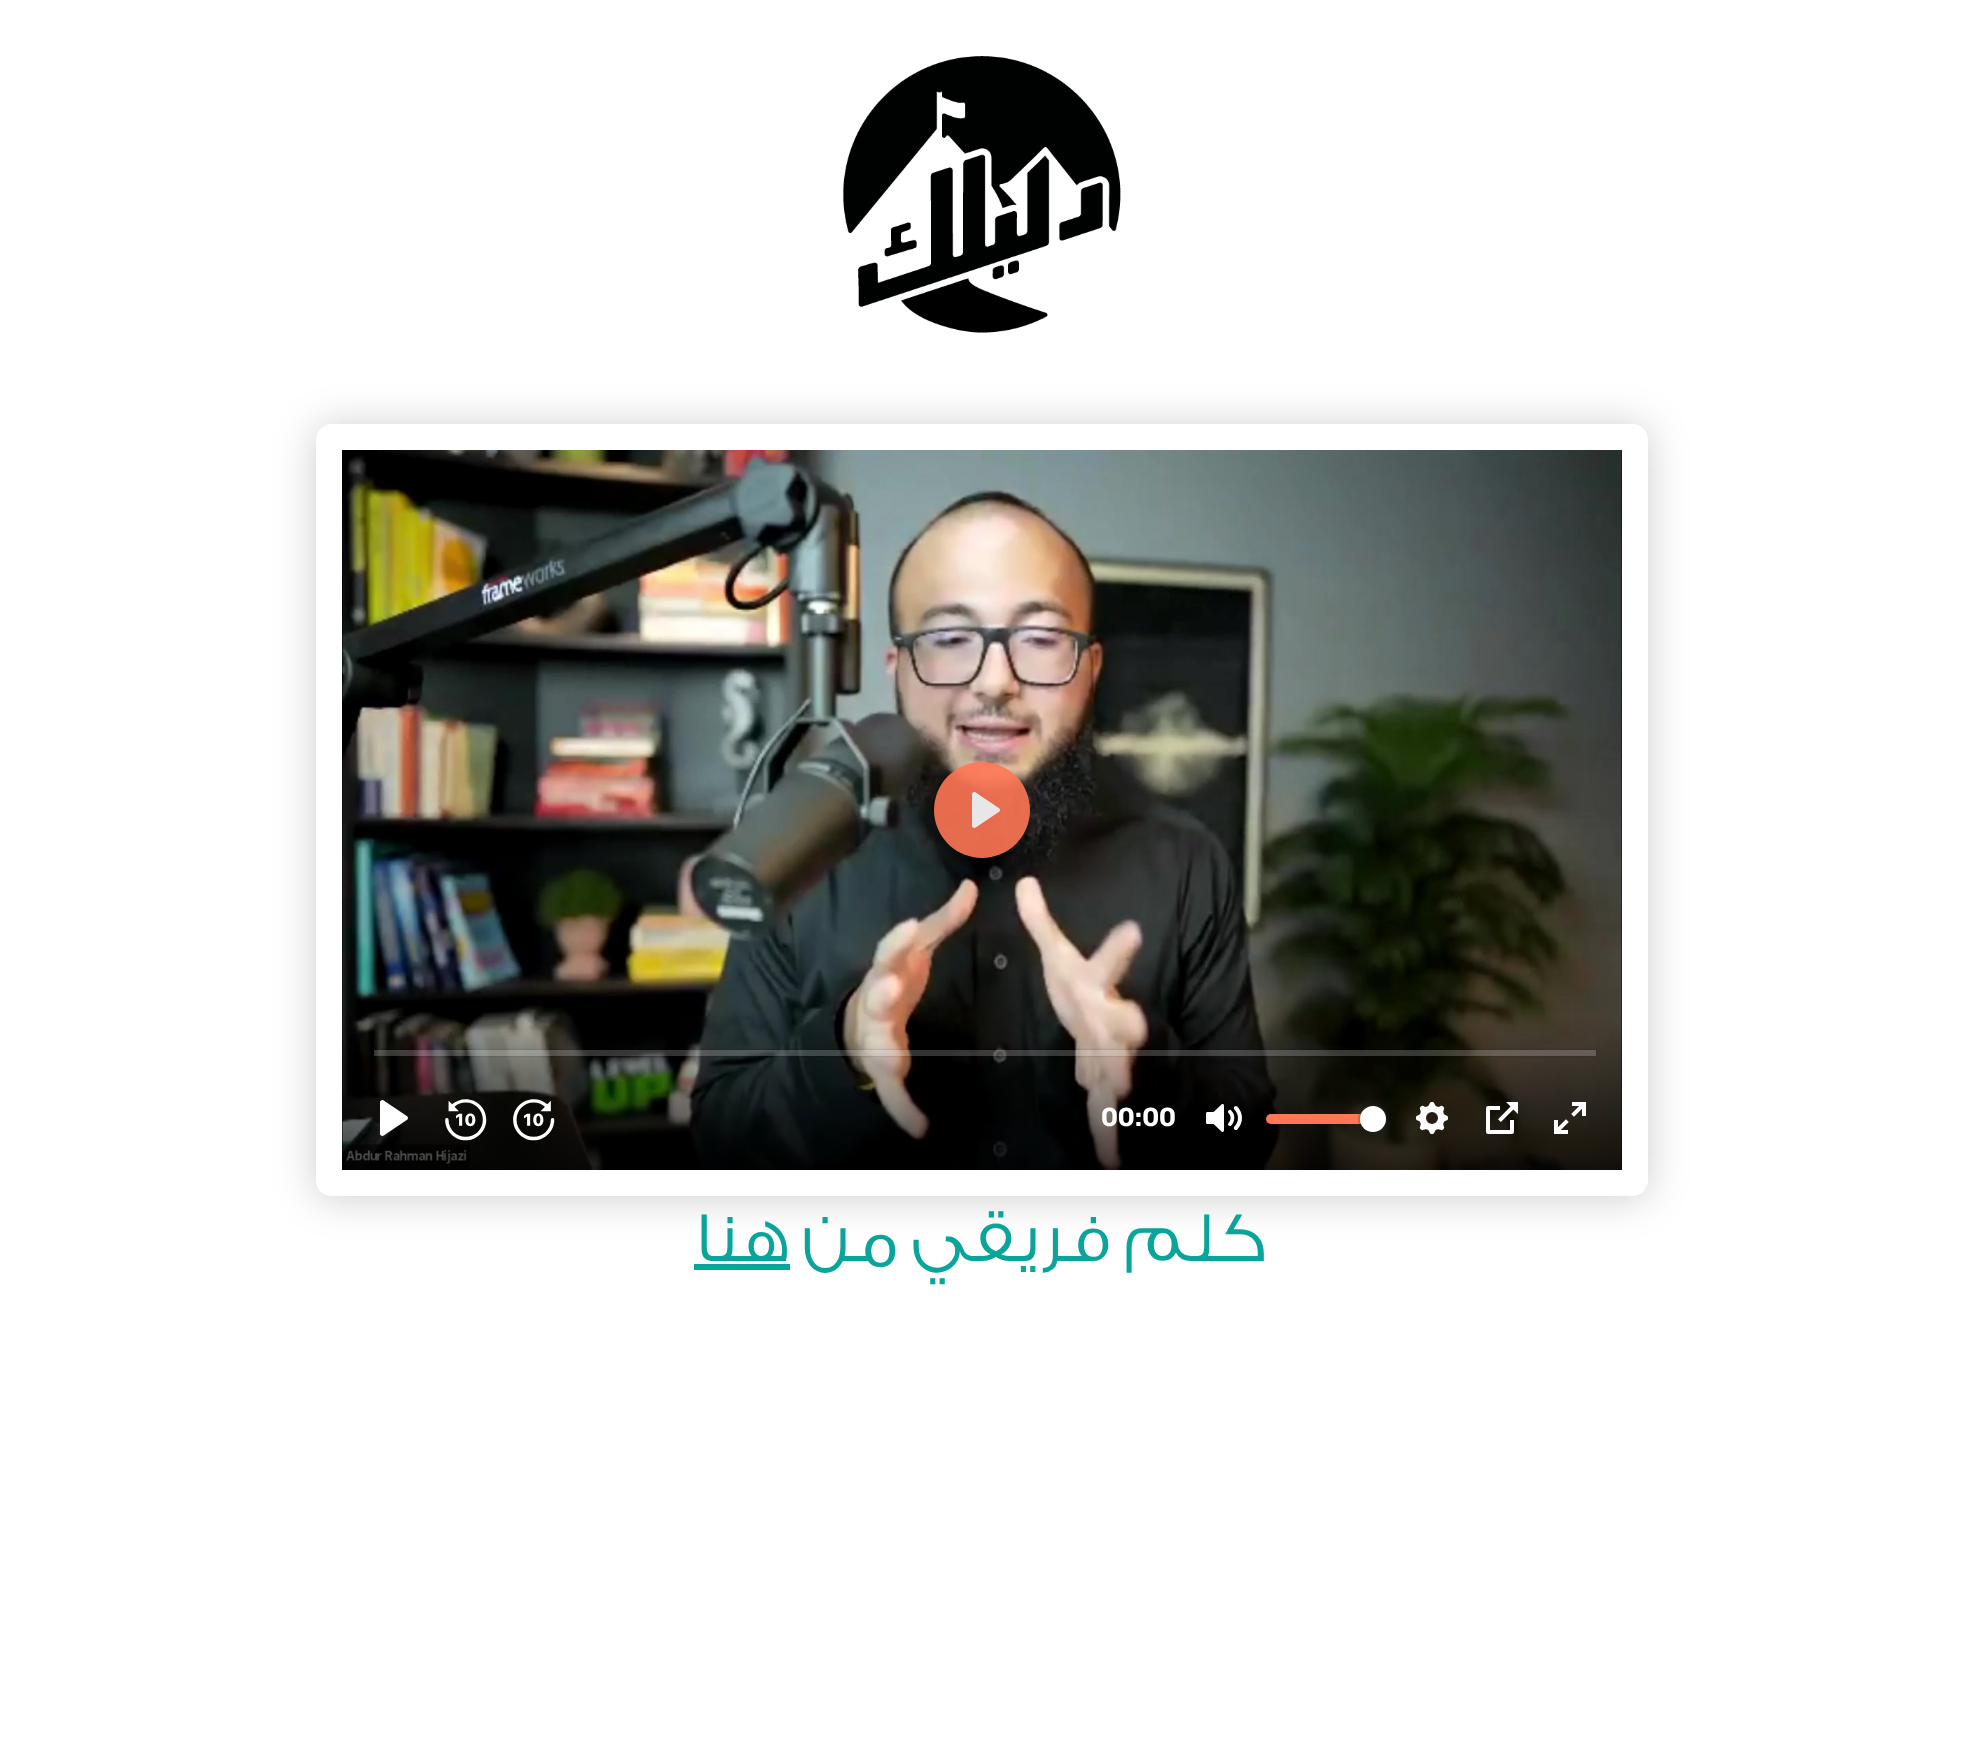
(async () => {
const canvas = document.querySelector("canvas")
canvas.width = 1962
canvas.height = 1744
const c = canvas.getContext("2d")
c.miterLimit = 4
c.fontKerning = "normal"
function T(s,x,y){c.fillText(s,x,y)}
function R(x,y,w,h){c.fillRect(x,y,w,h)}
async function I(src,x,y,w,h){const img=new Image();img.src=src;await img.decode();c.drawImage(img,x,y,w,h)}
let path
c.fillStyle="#fff"
R(0,0,1962,1744)
await I("1.png",843,56,278,277)
c.save()
path = new Path2D("M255 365h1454v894h-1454zm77 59h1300c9 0 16 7 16 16v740c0 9-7 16-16 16h-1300c-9 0-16-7-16-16v-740c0-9 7-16 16-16z")
c.clip(path,"evenodd")
c.fillStyle="#00000033"
c.filter="blur(20px)"
c.beginPath()
c.roundRect(316,426,1332,772,16)
c.fill()
c.filter="none"
c.restore()
await I("2.png",342,450,1280,720)
c.direction="rtl"
c.font="300 72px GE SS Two"
c.fillStyle="#09a59a"
T("كلم فريقي من",1267,1261)
T("هنا",790,1261)
R(694,1264,96,6)
})()
